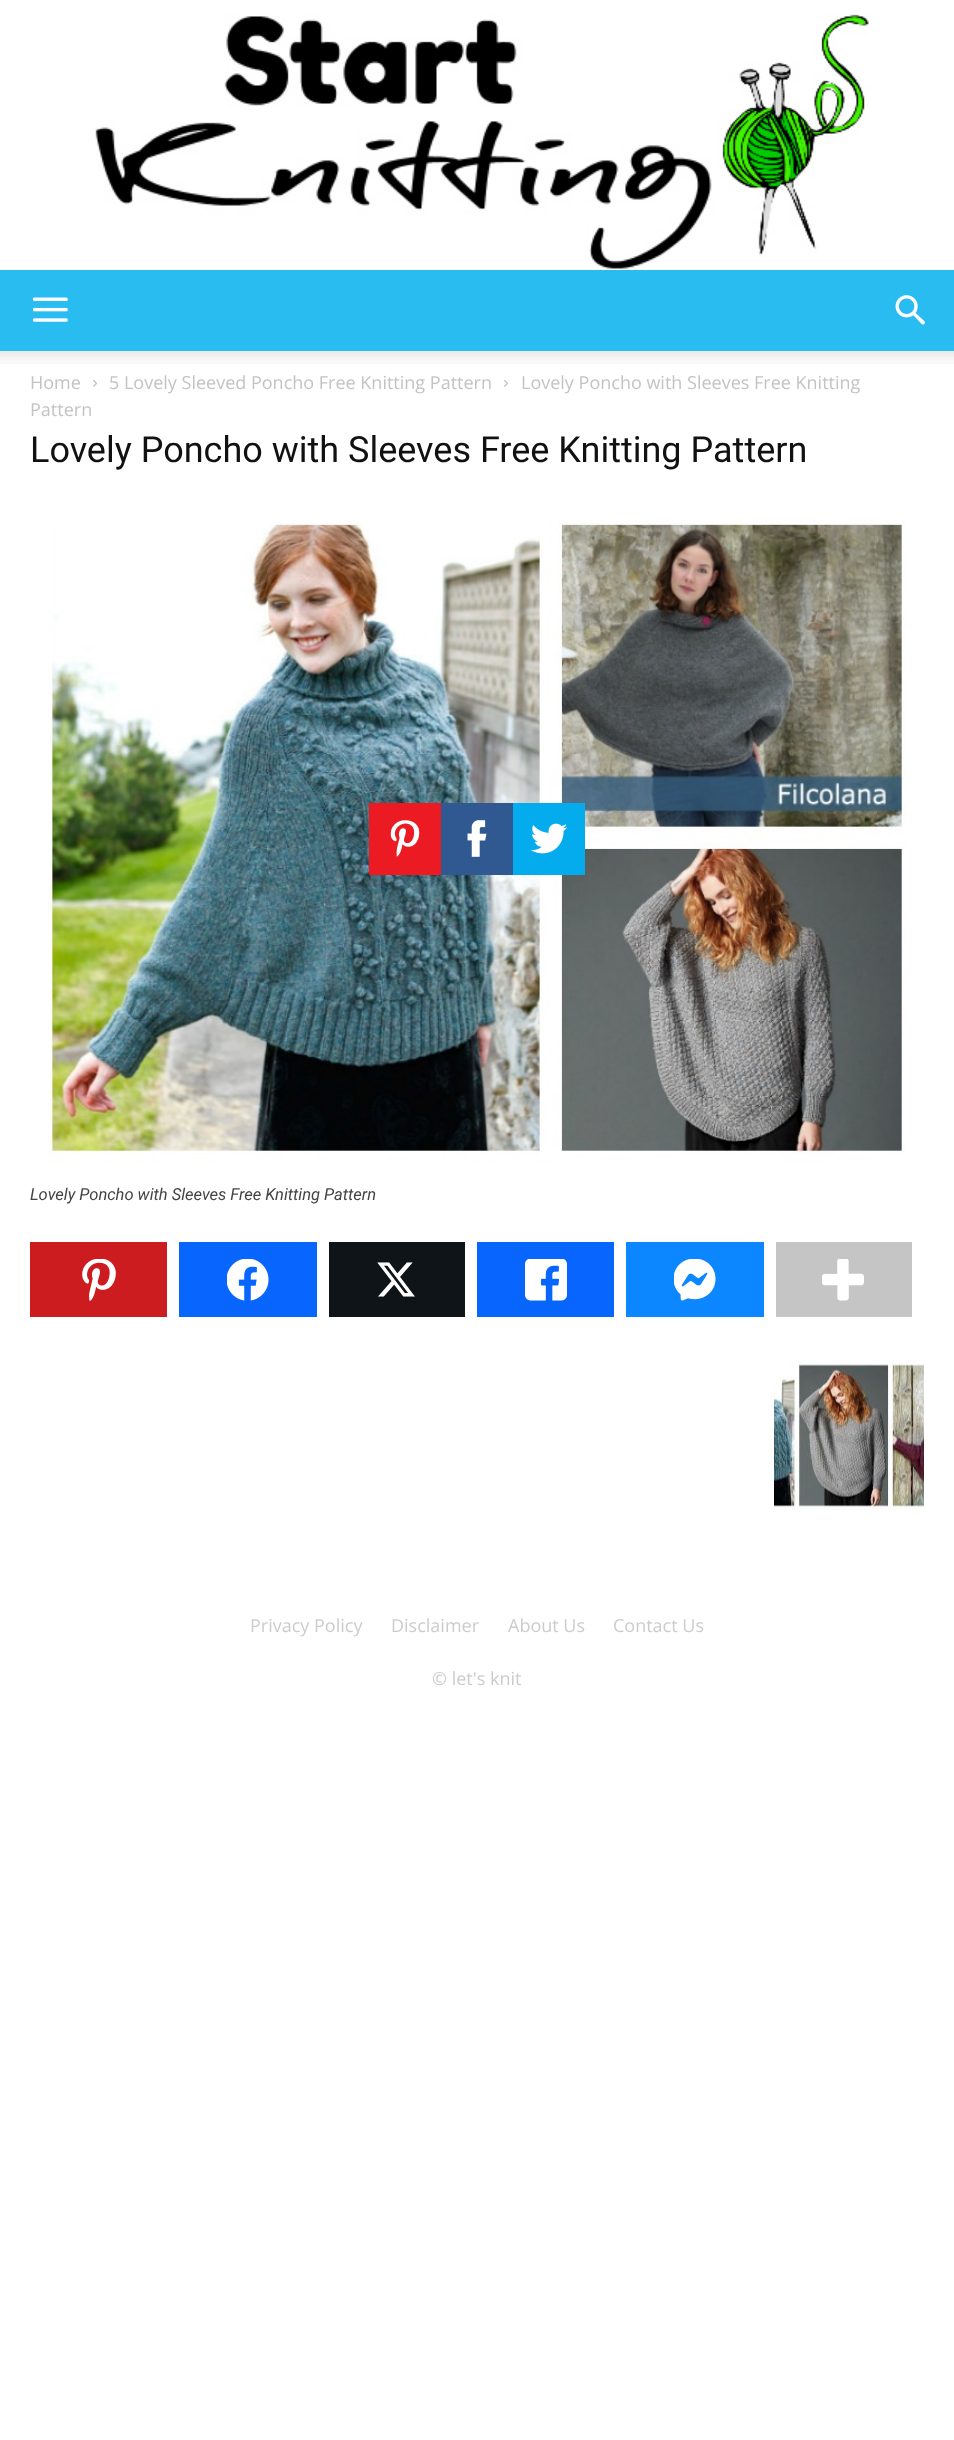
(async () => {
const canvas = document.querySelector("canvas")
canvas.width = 954
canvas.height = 2440
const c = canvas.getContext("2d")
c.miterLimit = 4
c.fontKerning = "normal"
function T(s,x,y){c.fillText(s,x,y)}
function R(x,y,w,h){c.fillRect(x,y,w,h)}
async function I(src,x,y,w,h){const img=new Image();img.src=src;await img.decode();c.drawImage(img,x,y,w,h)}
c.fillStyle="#fff"
R(0,0,954,2440)
await I("1.png",95,14,774,255)
c.fillStyle="#28bcf0"
R(0,270,954,81)
await I("2.png",33,297,35,25)
await I("3.png",895,295,30,30)
await I("4.png",0,351,954,13)
c.font="18px Open Sans"
c.fillStyle="#c3c3c3"
T("Home",30,389)
await I("5.png",93,380,4,7)
T("5 Lovely Sleeved Poncho Free Knitting Pattern",109,389)
await I("5.png",504,380,4,7)
T("Lovely Poncho with Sleeves Free Knitting",521,389)
T("Pattern",30,416)
c.font="36px Roboto"
c.fillStyle="#111"
T("Lovely Poncho with Sleeves Free Knitting Pattern",30,462)
await I("6.png",48,520,858,644)
c.fillStyle="#ec1a22"
R(369,803,72,72)
await I("7.png",390,820,30,37)
c.fillStyle="#305891"
R(441,803,72,72)
await I("8.png",467,820,20,37)
c.fillStyle="#05aced"
R(513,803,72,72)
await I("9.png",531,823,37,31)
c.font="italic 16.5px Roboto"
c.fillStyle="#444"
T("Lovely Poncho with Sleeves Free Knitting Pattern",30,1200)
c.fillStyle="#cd1c1f"
R(30,1242,137,75)
await I("10.png",82,1259,34,42)
c.fillStyle="#0866ff"
R(179,1242,138,75)
await I("11.png",227,1259,42,42)
c.fillStyle="#0f1419"
R(329,1242,136,75)
await I("12.png",377,1262,38,35)
c.fillStyle="#0866ff"
R(477,1242,137,75)
await I("13.png",525,1259,42,42)
c.fillStyle="#0d87ff"
R(626,1242,138,75)
await I("14.png",674,1259,42,42)
c.fillStyle="#c5c5c5"
R(776,1242,136,75)
await I("15.png",822,1259,42,42)
await I("16.png",774,1360,150,151)
c.font="18px Open Sans"
c.fillStyle="#ccc"
T("Privacy Policy",250,1632)
T("Disclaimer",391,1632)
T("About Us",508,1632)
T("Contact Us",613,1632)
T("© let's knit",432,1685)
})()
